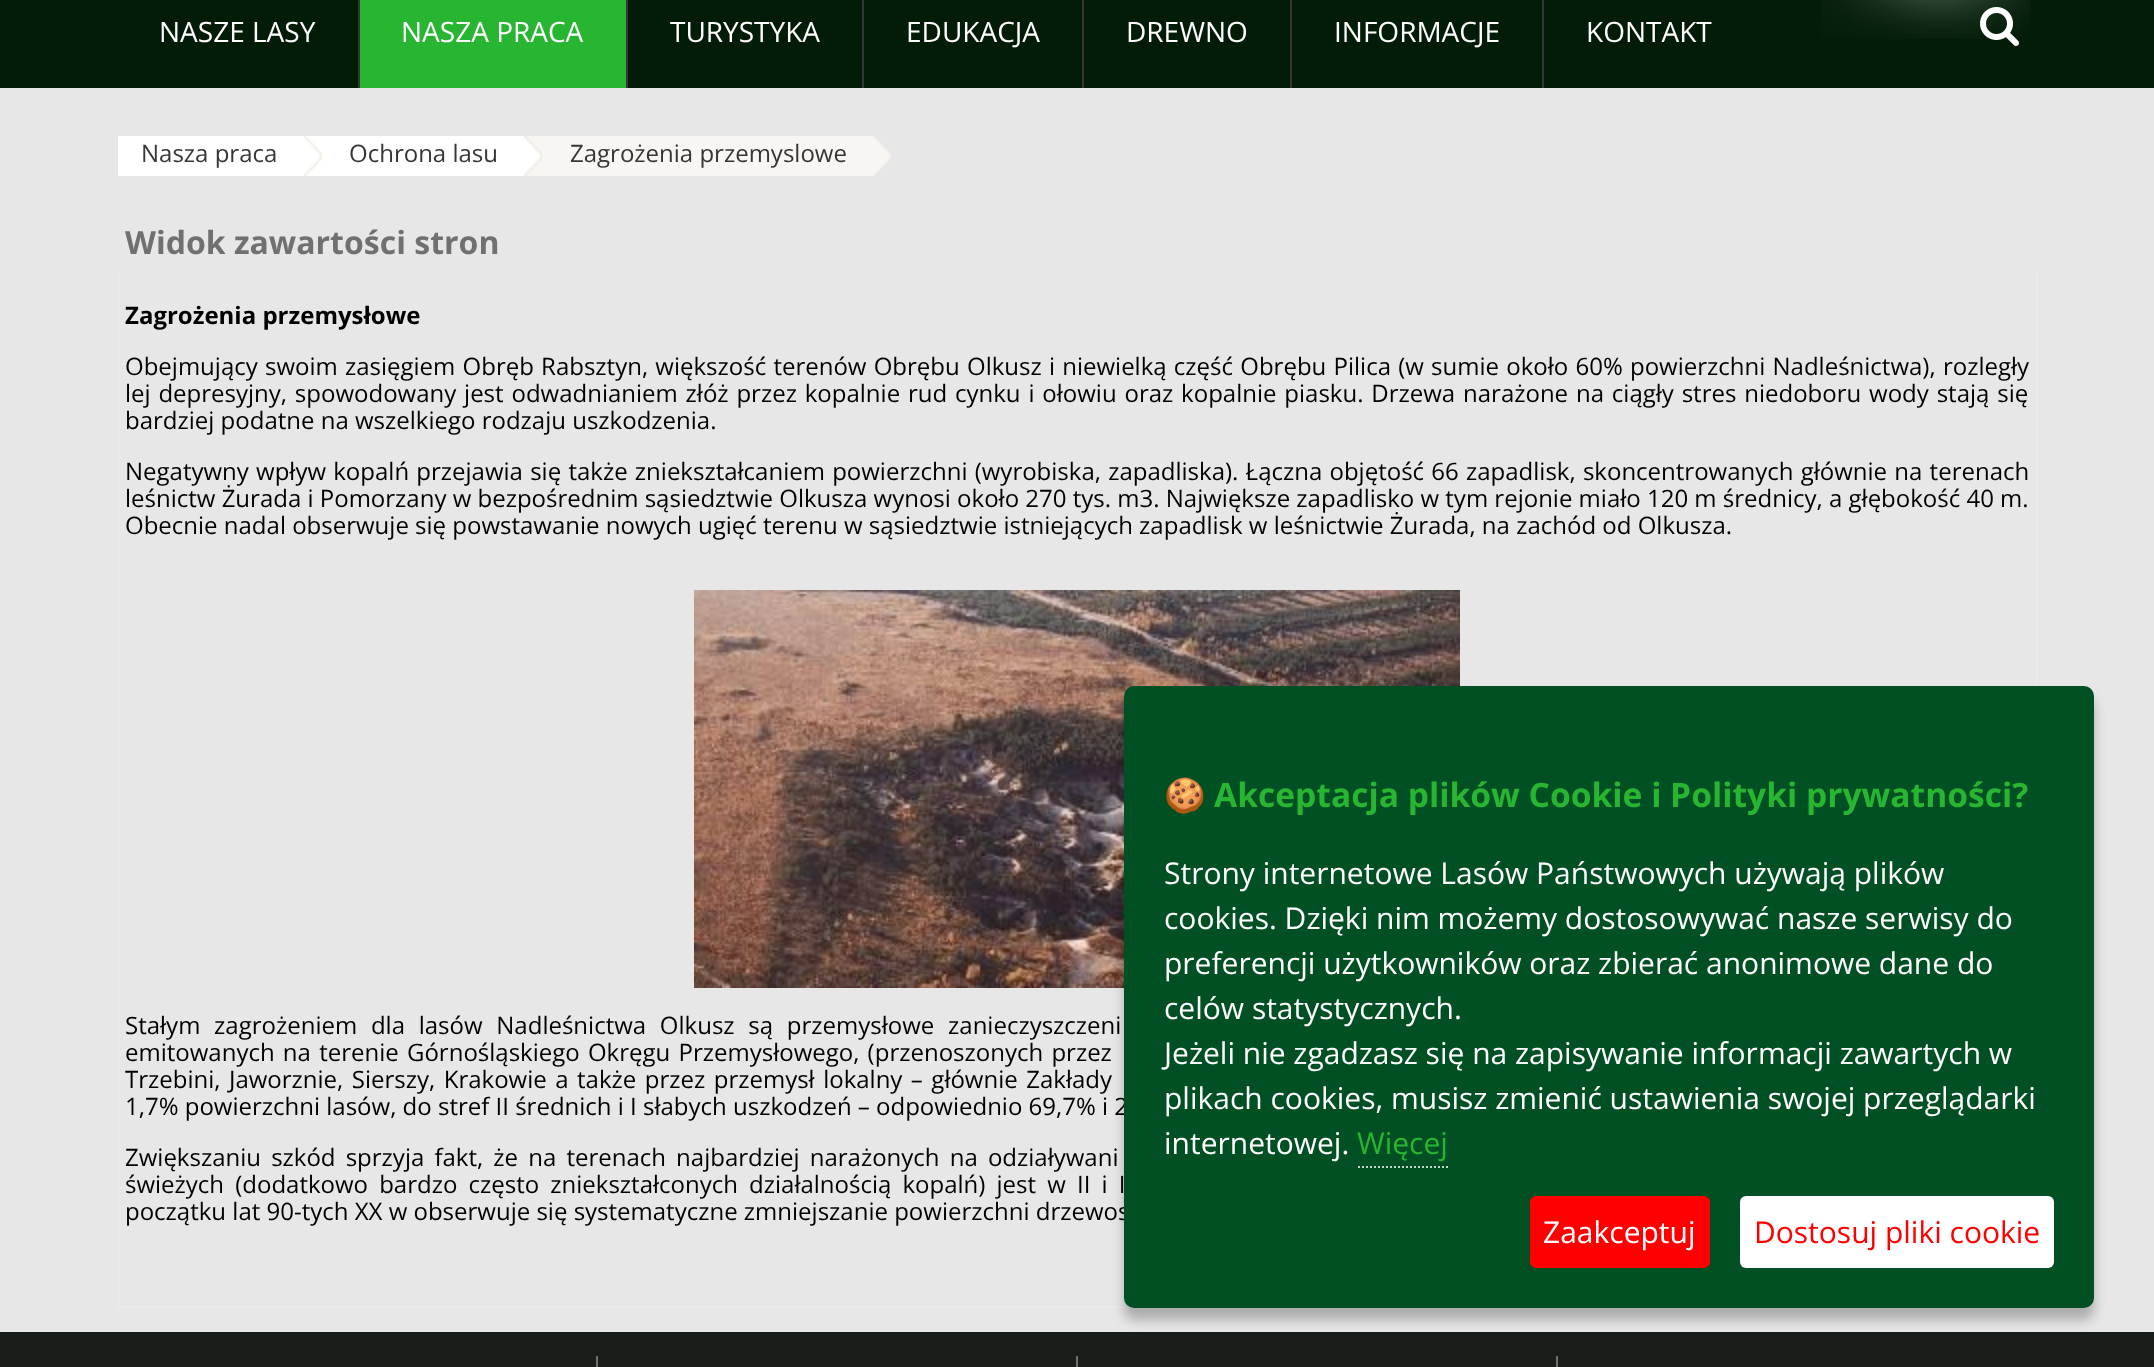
(async () => {
const canvas = document.querySelector("canvas")
canvas.width = 2154
canvas.height = 1367
const c = canvas.getContext("2d")
c.miterLimit = 4
c.fontKerning = "normal"
function T(s,x,y){c.fillText(s,x,y)}
function R(x,y,w,h){c.fillRect(x,y,w,h)}
function Q(x,y,w,h,r){c.beginPath();c.roundRect(x,y,w,h,r);c.fill()}
async function I(src,x,y,w,h){const img=new Image();img.src=src;await img.decode();c.drawImage(img,x,y,w,h)}
let path
c.fillStyle="#e7e7e7"
R(0,0,2154,1367)
c.fillStyle="#031c07"
R(0,0,2154,88)
await I("1.png",1821,0,210,39)
c.fillStyle="#363636"
R(358,0,2,88)
c.font="28px Open Sans"
c.fillStyle="#fff"
T("NASZE LASY",159,42)
c.fillStyle="#363636"
R(626,0,2,88)
c.fillStyle="#28b532"
R(360,0,266,88)
c.fillStyle="#fff"
T("NASZA PRACA",401,42)
c.fillStyle="#363636"
R(862,0,2,88)
c.fillStyle="#fff"
T("TURYSTYKA",670,42)
c.fillStyle="#363636"
R(1082,0,2,88)
c.fillStyle="#fff"
T("EDUKACJA",906,42)
c.fillStyle="#363636"
R(1290,0,2,88)
c.fillStyle="#fff"
T("DREWNO",1126,42)
c.fillStyle="#363636"
R(1542,0,2,88)
c.fillStyle="#fff"
T("INFORMACJE",1334,42)
T("KONTAKT",1586,42)
await I("2.png",1980,7,39,39)
R(118,136,404,40)
c.font="24px Open Sans"
c.fillStyle="#363636"
T("Nasza praca",141,162)
await I("3.png",303,136,19,40)
T("Ochrona lasu",349,162)
c.fillStyle="#f8f6f2"
R(522,136,350,40)
await I("4.png",522,136,20,40)
c.fillStyle="#363636"
T("Zagrożenia przemyslowe",570,162)
await I("5.png",872,136,20,40)
c.font="bold 32px Open Sans"
c.fillStyle="#707070"
T("Widok zawartości stron",125,254)
c.fillStyle="#eaeaea"
R(2036,272,2,414)
R(118,1306,1016,2)
R(118,272,2,1036)
c.font="bold 24px Open Sans"
c.fillStyle="#000"
T("Zagrożenia przemysłowe",125,324)
c.wordSpacing="1px"
c.font="24px Open Sans"
T("Obejmujący swoim zasięgiem Obręb Rabsztyn, większość terenów Obrębu Olkusz i niewielką część Obrębu Pilica (w sumie około 60% powierzchni Nadleśnictwa), rozległy",125,375)
c.wordSpacing="1.6px"
T("lej depresyjny, spowodowany jest odwadnianiem złóż przez kopalnie rud cynku i ołowiu oraz kopalnie piasku. Drzewa narażone na ciągły stres niedoboru wody stają się",125,402)
c.wordSpacing="0px"
T("bardziej podatne na wszelkiego rodzaju uszkodzenia.",125,429)
c.wordSpacing="1px"
T("Negatywny wpływ kopalń przejawia się także zniekształcaniem powierzchni (wyrobiska, zapadliska). Łączna objętość 66 zapadlisk, skoncentrowanych głównie na terenach",125,480)
c.wordSpacing="0px"
T("leśnictw Żurada i Pomorzany w bezpośrednim sąsiedztwie Olkusza wynosi około 270 tys. m3. Największe zapadlisko w tym rejonie miało 120 m średnicy, a głębokość 40 m.",125,507)
T("Obecnie nadal obserwuje się powstawanie nowych ugięć terenu w sąsiedztwie istniejących zapadlisk w leśnictwie Żurada, na zachód od Olkusza.",125,534)
await I("6.png",694,590,766,398)
c.wordSpacing="7.5px"
T("Stałym zagrożeniem dla lasów Nadleśnictwa Olkusz są przemysłowe zanieczyszczeni",125,1034)
c.wordSpacing="2px"
T("emitowanych na terenie Górnośląskiego Okręgu Przemysłowego, (przenoszonych przez",125,1061)
c.wordSpacing="2.25px"
T("Trzebini, Jaworznie, Sierszy, Krakowie a także przez przemysł lokalny – głównie Zakłady",125,1088)
c.wordSpacing="0px"
T("1,7% powierzchni lasów, do stref II średnich i I słabych uszkodzeń – odpowiednio 69,7% i 2",125,1115)
c.wordSpacing="3.9px"
T("Zwiększaniu szkód sprzyja fakt, że na terenach najbardziej narażonych na odziaływani",125,1166)
c.wordSpacing="4.9px"
T("świeżych (dodatkowo bardzo często zniekształconych działalnością kopalń) jest w II i I",125,1193)
c.wordSpacing="0px"
T("początku lat 90-tych XX w obserwuje się systematyczne zmniejszanie powierzchni drzewos",125,1220)
c.fillStyle="#1a1e1b"
R(0,1332,2154,35)
c.fillStyle="#707070"
R(596,1356,2,11)
R(1076,1356,2,11)
R(1556,1356,2,11)
c.fillStyle="#00000040"
c.filter="blur(6px)"
c.beginPath()
c.roundRect(1124,698,970,622,10)
c.fill()
c.filter="none"
c.fillStyle="#005023"
Q(1124,686,970,622,10)
c.font="bold 33.6px Noto Color Emoji"
c.fillStyle="#28b532"
T("🍪",1164,807)
c.font="bold 33.6px Open Sans"
T("Akceptacja plików Cookie i Polityki prywatności?",1214,807)
c.font="30px Open Sans"
c.fillStyle="#fff"
T("Strony internetowe Lasów Państwowych używają plików",1164,884)
T("cookies. Dzięki nim możemy dostosowywać nasze serwisy do",1164,929)
T("preferencji użytkowników oraz zbierać anonimowe dane do",1164,974)
T("celów statystycznych.",1164,1019)
T("Jeżeli nie zgadzasz się na zapisywanie informacji zawartych w",1164,1064)
T("plikach cookies, musisz zmienić ustawienia swojej przeglądarki",1164,1109)
T("internetowej.",1164,1154)
c.fillStyle="#28b532"
T("Więcej",1357,1154)
path = new Path2D("M1358 1167h90")
c.strokeStyle="#bfd3c8"
c.lineWidth=2
c.setLineDash([2,2])
c.stroke(path)
c.fillStyle="#f00"
Q(1530,1196,180,72,6)
c.fillStyle="#fff"
T("Zaakceptuj",1543,1243)
Q(1740,1196,314,72,6)
c.fillStyle="#f00"
T("Dostosuj pliki cookie",1754,1243)
})()
